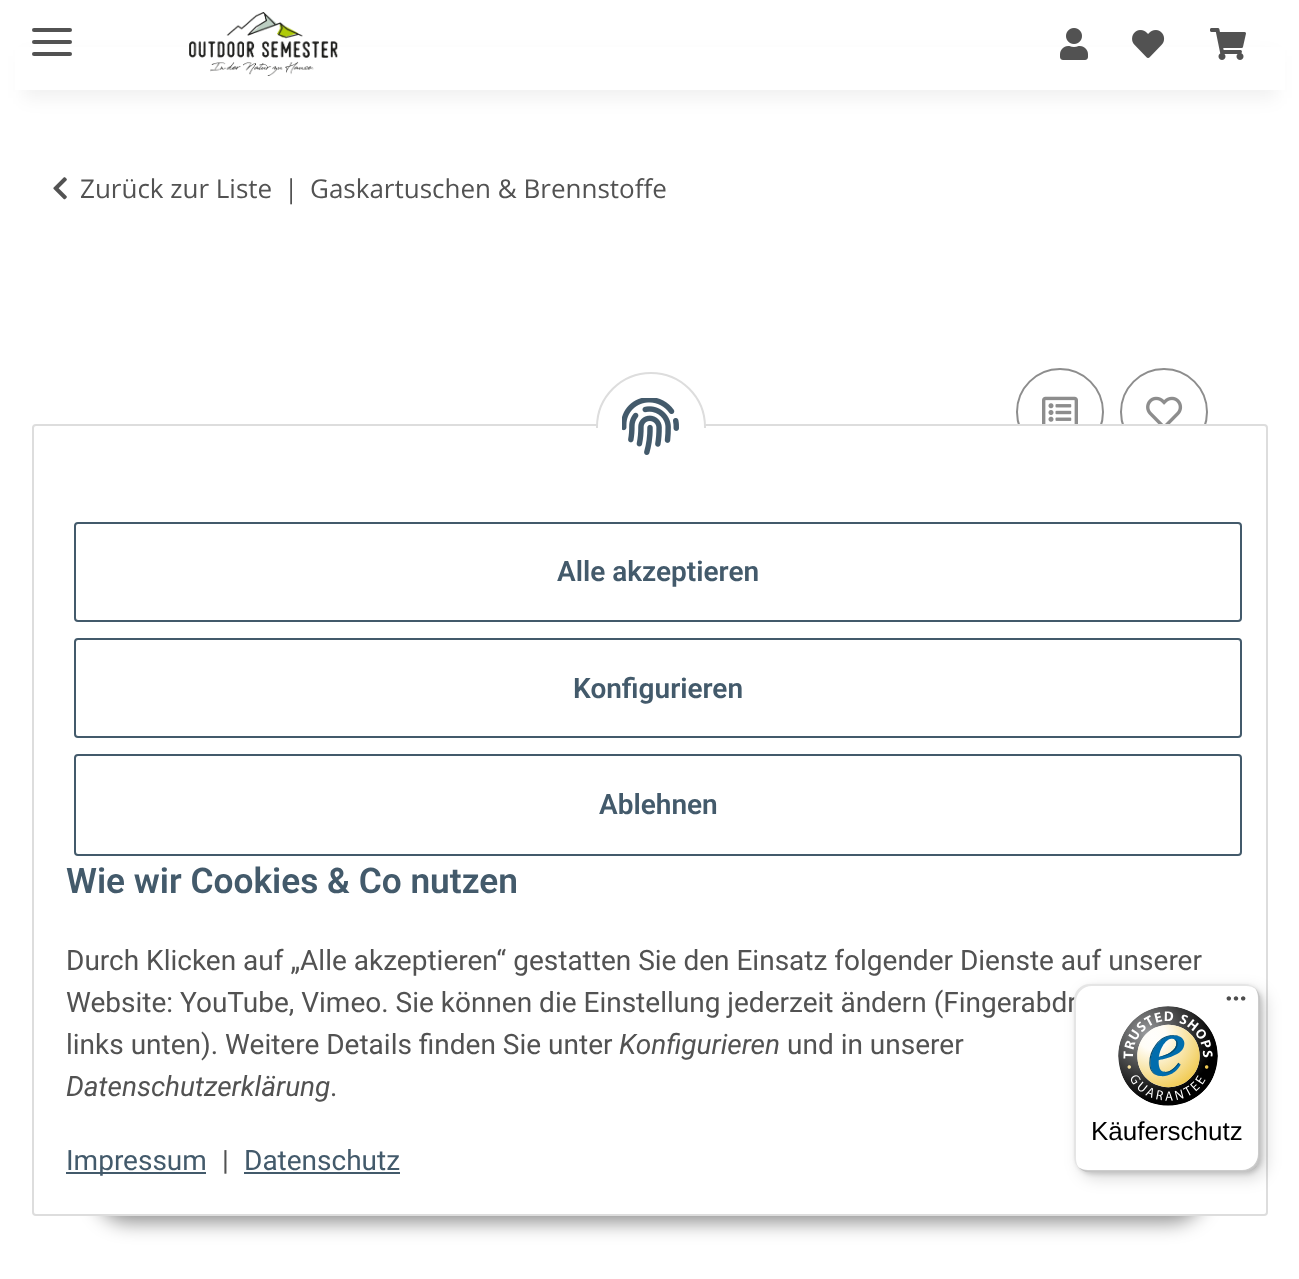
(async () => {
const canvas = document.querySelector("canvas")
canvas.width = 1299
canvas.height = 1279
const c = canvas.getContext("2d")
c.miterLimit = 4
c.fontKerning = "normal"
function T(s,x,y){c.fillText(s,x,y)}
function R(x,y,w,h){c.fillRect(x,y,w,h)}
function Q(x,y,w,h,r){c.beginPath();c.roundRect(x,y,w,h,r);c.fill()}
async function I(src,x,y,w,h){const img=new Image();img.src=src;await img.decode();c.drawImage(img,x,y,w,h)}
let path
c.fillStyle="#fff"
R(0,0,1299,1279)
c.fillStyle="#0000000f"
c.filter="blur(9px)"
c.beginPath()
c.rect(24,56,1252,42)
c.fill()
c.filter="none"
c.fillStyle="#fff"
R(15,47,1270,43)
c.fillStyle="#525252"
Q(32,40,40,4,2)
Q(32,28,40,4,2)
Q(32,52,40,4,2)
await I("1.png",189,12,149,64)
await I("2.png",1060,28,28,32)
await I("3.png",1132,30,33,28)
await I("4.png",1210,28,36,32)
await I("5.png",53,177,14,23)
c.font="26px Open Sans"
T("Zurück zur Liste",80,198)
T("|",284,198)
T("Gaskartuschen & Brennstoffe",310,198)
c.beginPath()
c.arc(1060,412,43,0,7)
c.strokeStyle="#8d8d8d"
c.lineWidth=2
c.stroke()
await I("6.png",1042,396,36,28)
c.beginPath()
c.arc(1164,412,43,0,7)
c.stroke()
await I("7.png",1146,396,37,28)
c.fillStyle="#00000073"
c.filter="blur(10px)"
c.beginPath()
c.roundRect(96,1158,1108,64,32)
c.fill()
c.filter="none"
c.fillStyle="#fff"
c.beginPath()
c.roundRect(33,425,1234,790,3)
c.fill()
c.strokeStyle="#ddd"
c.stroke()
c.beginPath()
c.arc(651,427,54,0,7)
c.fill()
c.stroke()
R(596,428,110,54)
await I("8.png",622,398,57,57)
c.beginPath()
c.roundRect(75,523,1166,98,3)
c.strokeStyle="#435a6b"
c.stroke()
c.font="600 28px Roboto"
c.fillStyle="#435a6b"
T("Alle akzeptieren",557,581)
c.beginPath()
c.roundRect(75,639,1166,98,3)
c.stroke()
T("Konfigurieren",573,698)
c.beginPath()
c.roundRect(75,755,1166,100,3)
c.stroke()
T("Ablehnen",599,814)
c.font="600 35.25px Roboto"
T("Wie wir Cookies & Co nutzen",66,893)
c.font="28px Roboto"
c.fillStyle="#525252"
T("Durch Klicken auf „Alle akzeptieren“ gestatten Sie den Einsatz folgender Dienste auf unserer",66,970)
T("Website: YouTube, Vimeo. Sie können die Einstellung jederzeit ändern (Fingerabdr",66,1012)
T("links unten). Weitere Details finden Sie unter",66,1054)
c.font="italic 28px Roboto"
T("Konfigurieren",619,1054)
c.font="28px Roboto"
T("und in unserer",787,1054)
c.font="italic 28px Roboto"
T("Datenschutzerklärung",66,1096)
c.font="28px Roboto"
T(".",330,1096)
c.fillStyle="#435a6b"
R(66,1172,140,2)
T("Impressum",66,1170)
c.fillStyle="#525252"
T("|",222,1170)
c.fillStyle="#435a6b"
T("Datenschutz",244,1170)
R(244,1172,156,2)
c.fillStyle="#00000026"
c.filter="blur(8px)"
c.beginPath()
c.roundRect(1080,990,186,188,16)
c.fill()
c.filter="none"
c.filter="blur(2px)"
c.beginPath()
c.roundRect(1076,986,186,188,16)
c.fill()
c.filter="none"
c.fillStyle="#fff"
Q(1074,984,186,188,16)
c.fillStyle="#0000001a"
path = new Path2D("M1092 986h154c4 0 7 1 10 3c-3-3-7-5-12-5h-154c-9 0-16 7-16 16v156c0 5 2 9 5 12c-2-3-3-6-3-10v-156c0-9 7-16 16-16z")
c.fill(path)
c.fillStyle="#00000033"
path = new Path2D("M1078 1167c3 3 7 5 12 5h154c9 0 16-7 16-16v-156c0-5-2-9-5-12c2 3 3 6 3 10v156c0 9-7 16-16 16h-154c-4 0-7-1-10-3z")
c.fill(path)
c.fillStyle="#32323233"
path = new Path2D("M1079 1167c3 3 7 5 11 5h154c9 0 16-7 16-16v-156c0-4-2-8-5-11c3 3 4 6 4 10v156c0 9-7 16-16 16h-154c-4 0-7-1-10-4z")
c.fill(path)
c.fillStyle="#ffffff4d"
path = new Path2D("M1079 1167c3 3 7 5 11 5h154c9 0 16-7 16-16v-156c0-4-2-8-5-11c3 3 4 6 4 10v156c0 9-7 16-16 16h-154c-4 0-7-1-10-4z")
c.fill(path)
await I("9.png",1226,996,20,5)
await I("10.png",1118,1006,100,100)
c.font="26px Liberation Sans"
c.fillStyle="#000"
T("Käuferschutz",1091,1140)
})()
